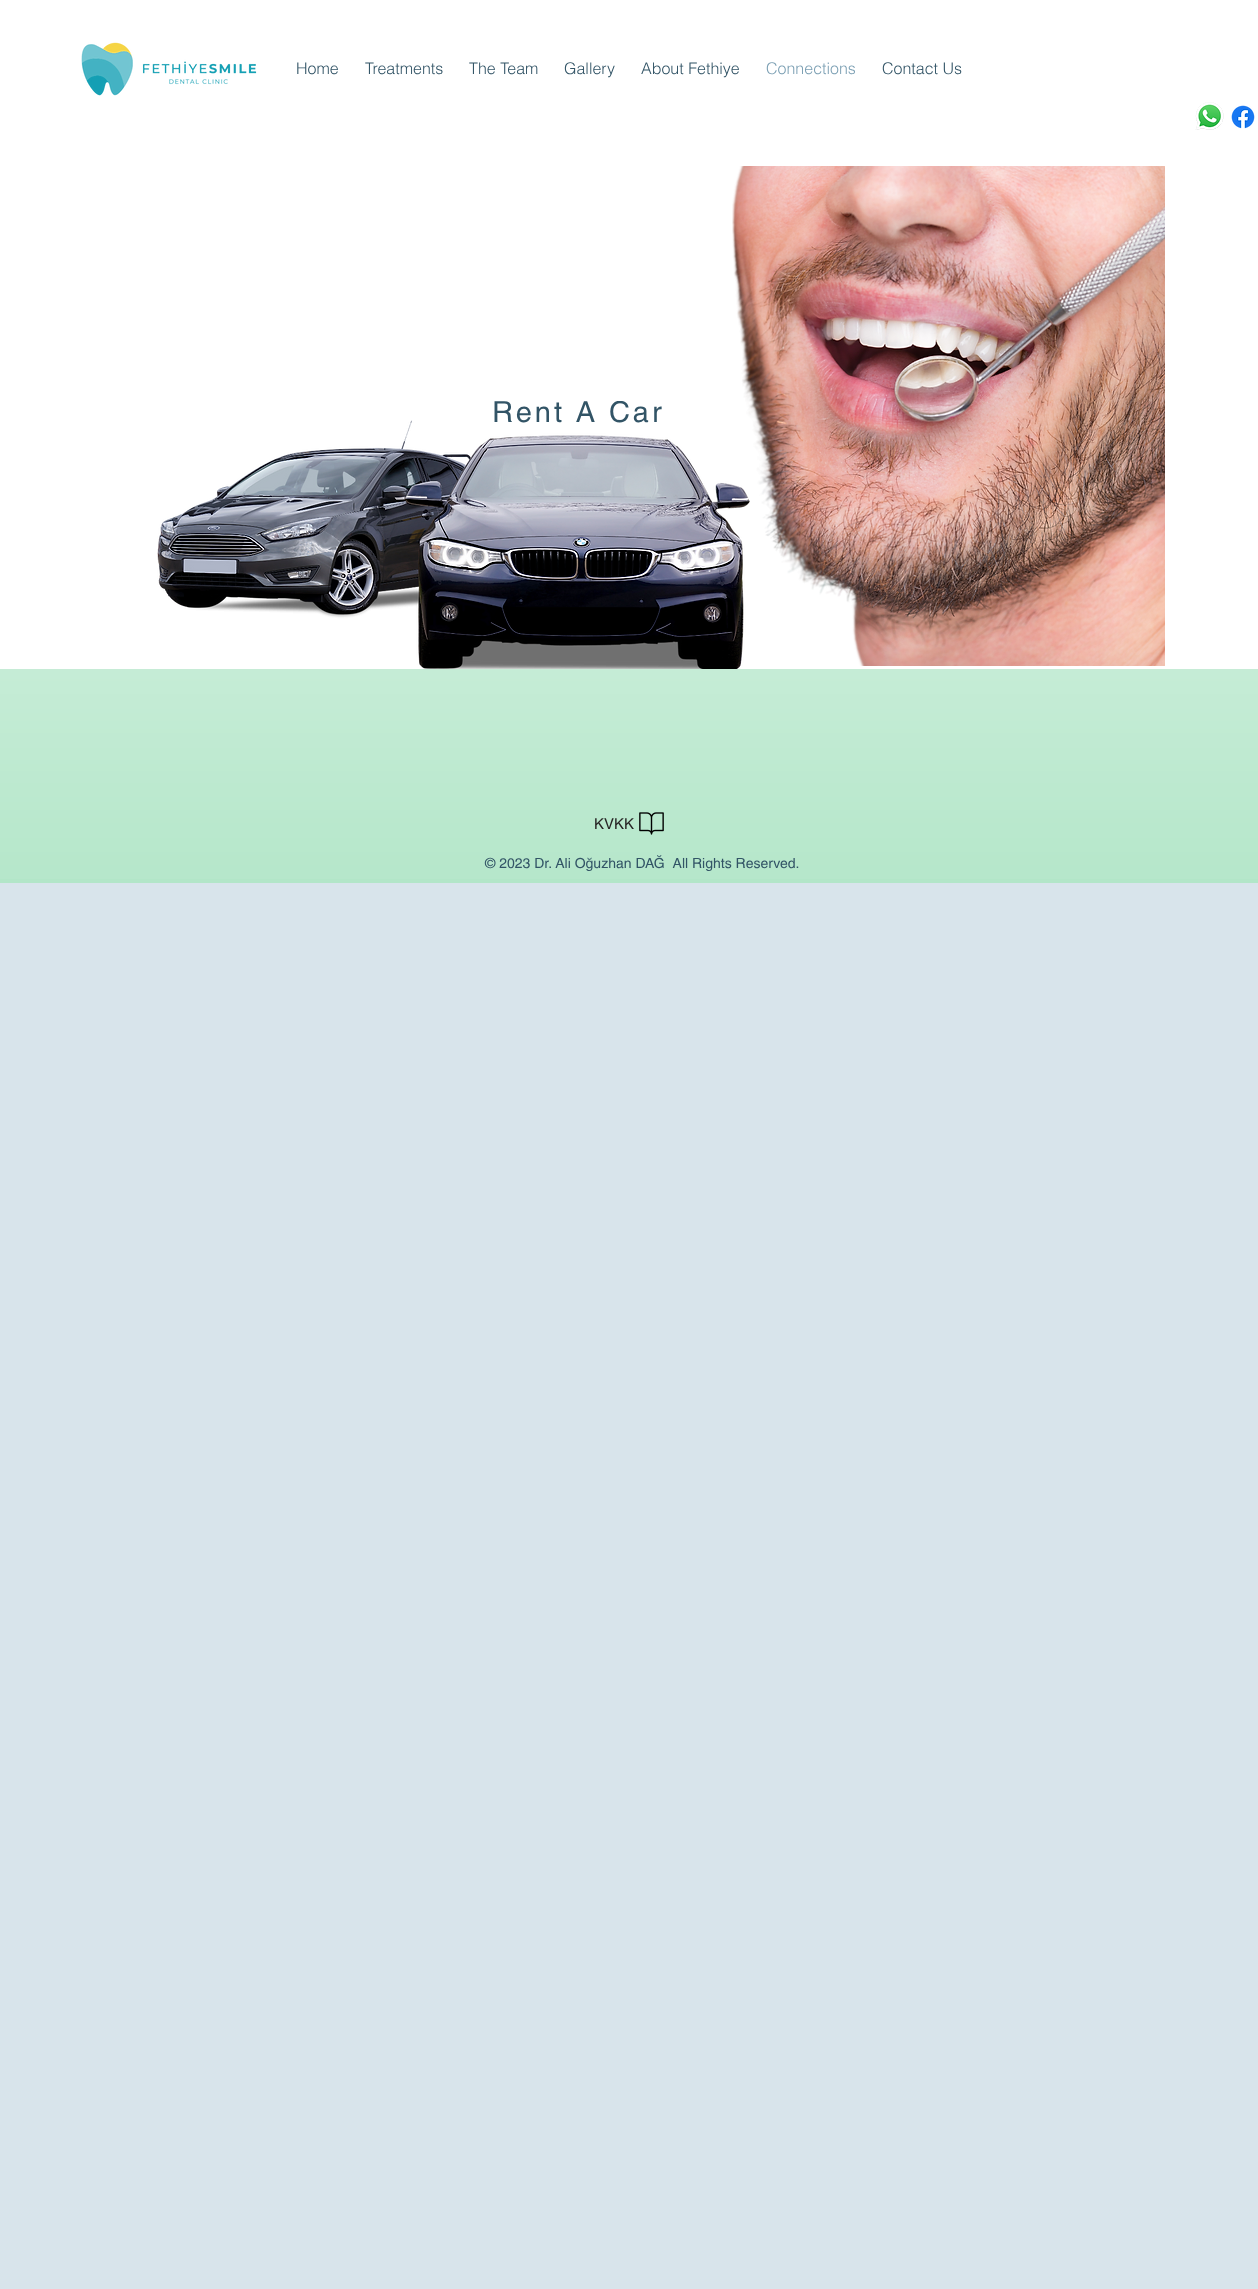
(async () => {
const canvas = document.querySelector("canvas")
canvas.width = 1258
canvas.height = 2289
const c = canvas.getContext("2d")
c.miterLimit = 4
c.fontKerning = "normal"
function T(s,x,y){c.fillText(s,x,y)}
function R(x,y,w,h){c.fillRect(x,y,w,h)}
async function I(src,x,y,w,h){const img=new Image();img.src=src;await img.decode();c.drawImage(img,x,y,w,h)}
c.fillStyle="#d8e4eb"
R(0,0,1258,2289)
c.fillStyle="#fff"
R(0,0,1258,669)
await I("1.png",81,42,176,54)
c.font="300 16px helvetica"
c.fillStyle="#325466"
T("Home",296,74)
T("Treatments",365,74)
T("The Team",469,74)
T("Gallery",564,74)
T("About Fethiye",641,74)
c.fillStyle="#7b9fb3"
T("Connections",766,74)
c.fillStyle="#325466"
T("Contact Us",882,74)
await I("2.png",1195,102,29,28)
await I("3.png",1231,105,24,24)
await I("4.png",732,166,433,500)
await I("5.png",157,420,593,249)
c.save()
c.beginPath()
c.rect(492,401,172,22)
c.clip()
c.letterSpacing="2.9px"
c.font="29px helvetica"
T("Rent A Car",492,422)
c.restore()
c.fillStyle="#b2e6c8"
R(0,669,1258,214)
await I("6.png",0,669,1258,210)
c.font="15px helvetica"
c.fillStyle="#282626"
T("KVKK",594,829)
await I("7.png",639,812,25,23)
c.font="14px helvetica"
c.fillStyle="#325466"
T("© 2023 Dr. Ali Oğuzhan DAĞ  All Rights Reserved.",485,868)
})()
